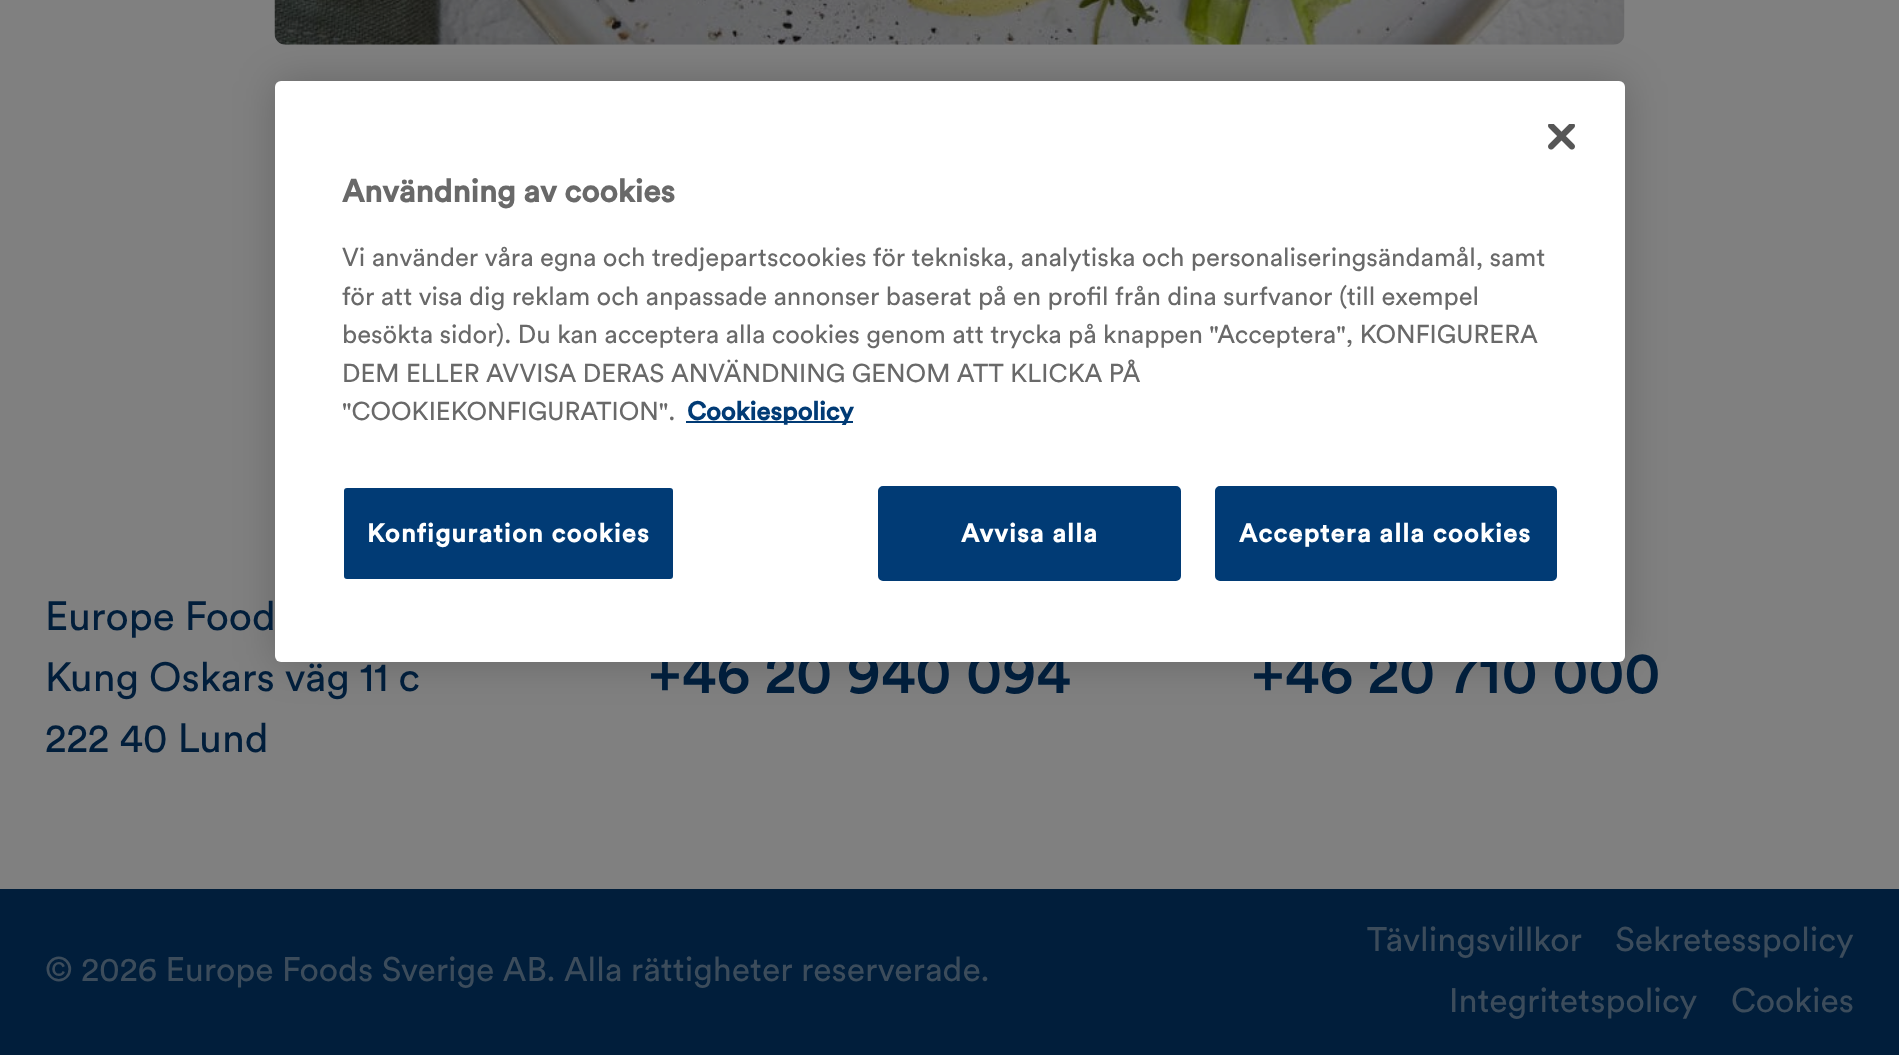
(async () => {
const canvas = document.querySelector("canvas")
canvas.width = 1899
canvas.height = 1055
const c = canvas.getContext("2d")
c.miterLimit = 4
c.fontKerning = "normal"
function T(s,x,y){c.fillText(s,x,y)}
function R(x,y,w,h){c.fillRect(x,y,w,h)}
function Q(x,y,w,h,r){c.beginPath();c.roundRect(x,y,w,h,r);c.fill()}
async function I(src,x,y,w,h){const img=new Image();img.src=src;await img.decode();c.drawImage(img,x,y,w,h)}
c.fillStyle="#808080"
R(0,0,1899,1055)
await I("1.png",274,0,1351,45)
c.fillStyle="#00000033"
c.filter="blur(20px)"
c.beginPath()
c.roundRect(275,81,1350,581,6)
c.fill()
c.filter="none"
c.font="40.5px Circular"
c.fillStyle="#011e3b"
T("Kung Oskars väg 11 c",45,691)
c.font="500 58.5px Circular"
T("+46 20 940 094",648,693)
T("+46 20 710 000",1251,693)
c.fillStyle="#fff"
Q(275,81,1350,581,6)
await I("2.png",1548,124,27,26)
c.font="bold 31.5px Circular"
c.fillStyle="#696969"
T("Användning av cookies",342,202)
c.font="25.6px Circular"
T("Vi använder våra egna och tredjepartscookies för tekniska, analytiska och personaliseringsändamål, samt",342,266)
T("för att visa dig reklam och anpassade annonser baserat på en profil från dina surfvanor (till exempel",342,305)
T("besökta sidor). Du kan acceptera alla cookies genom att trycka på knappen \"Acceptera\", KONFIGURERA",342,343)
T("DEM ELLER AVVISA DERAS ANVÄNDNING GENOM ATT KLICKA PÅ",342,382)
T("\"COOKIEKONFIGURATION\".",342,420)
c.fillStyle="#013b75"
R(686,421,167,2)
c.font="bold 25.6px Circular"
T("Cookiespolicy",687,420)
c.beginPath()
c.roundRect(343,487,331,93,4)
c.fill()
c.strokeStyle="#fff"
c.lineWidth=2
c.stroke()
c.letterSpacing="1.25px"
c.fillStyle="#fff"
T("Konfiguration cookies",367,542)
c.fillStyle="#013b75"
c.beginPath()
c.roundRect(879,487,301,93,4)
c.fill()
c.strokeStyle="#013b75"
c.stroke()
c.fillStyle="#fff"
T("Avvisa alla",961,542)
c.fillStyle="#013b75"
c.beginPath()
c.roundRect(1216,487,340,93,4)
c.fill()
c.stroke()
c.fillStyle="#fff"
T("Acceptera alla cookies",1239,542)
c.letterSpacing="0px"
c.font="40.5px Circular"
c.fillStyle="#011e3b"
T("Europe Food",45,630)
T("222 40 Lund",45,752)
R(0,889,1899,166)
c.font="33.75px Circular"
c.fillStyle="#3c4c5b"
T("© 2026 Europe Foods Sverige AB. Alla rättigheter reserverade.",45,981)
T("Tävlingsvillkor",1367,951)
T("Sekretesspolicy",1615,951)
T("Integritetspolicy",1449,1012)
T("Cookies",1731,1012)
})()
